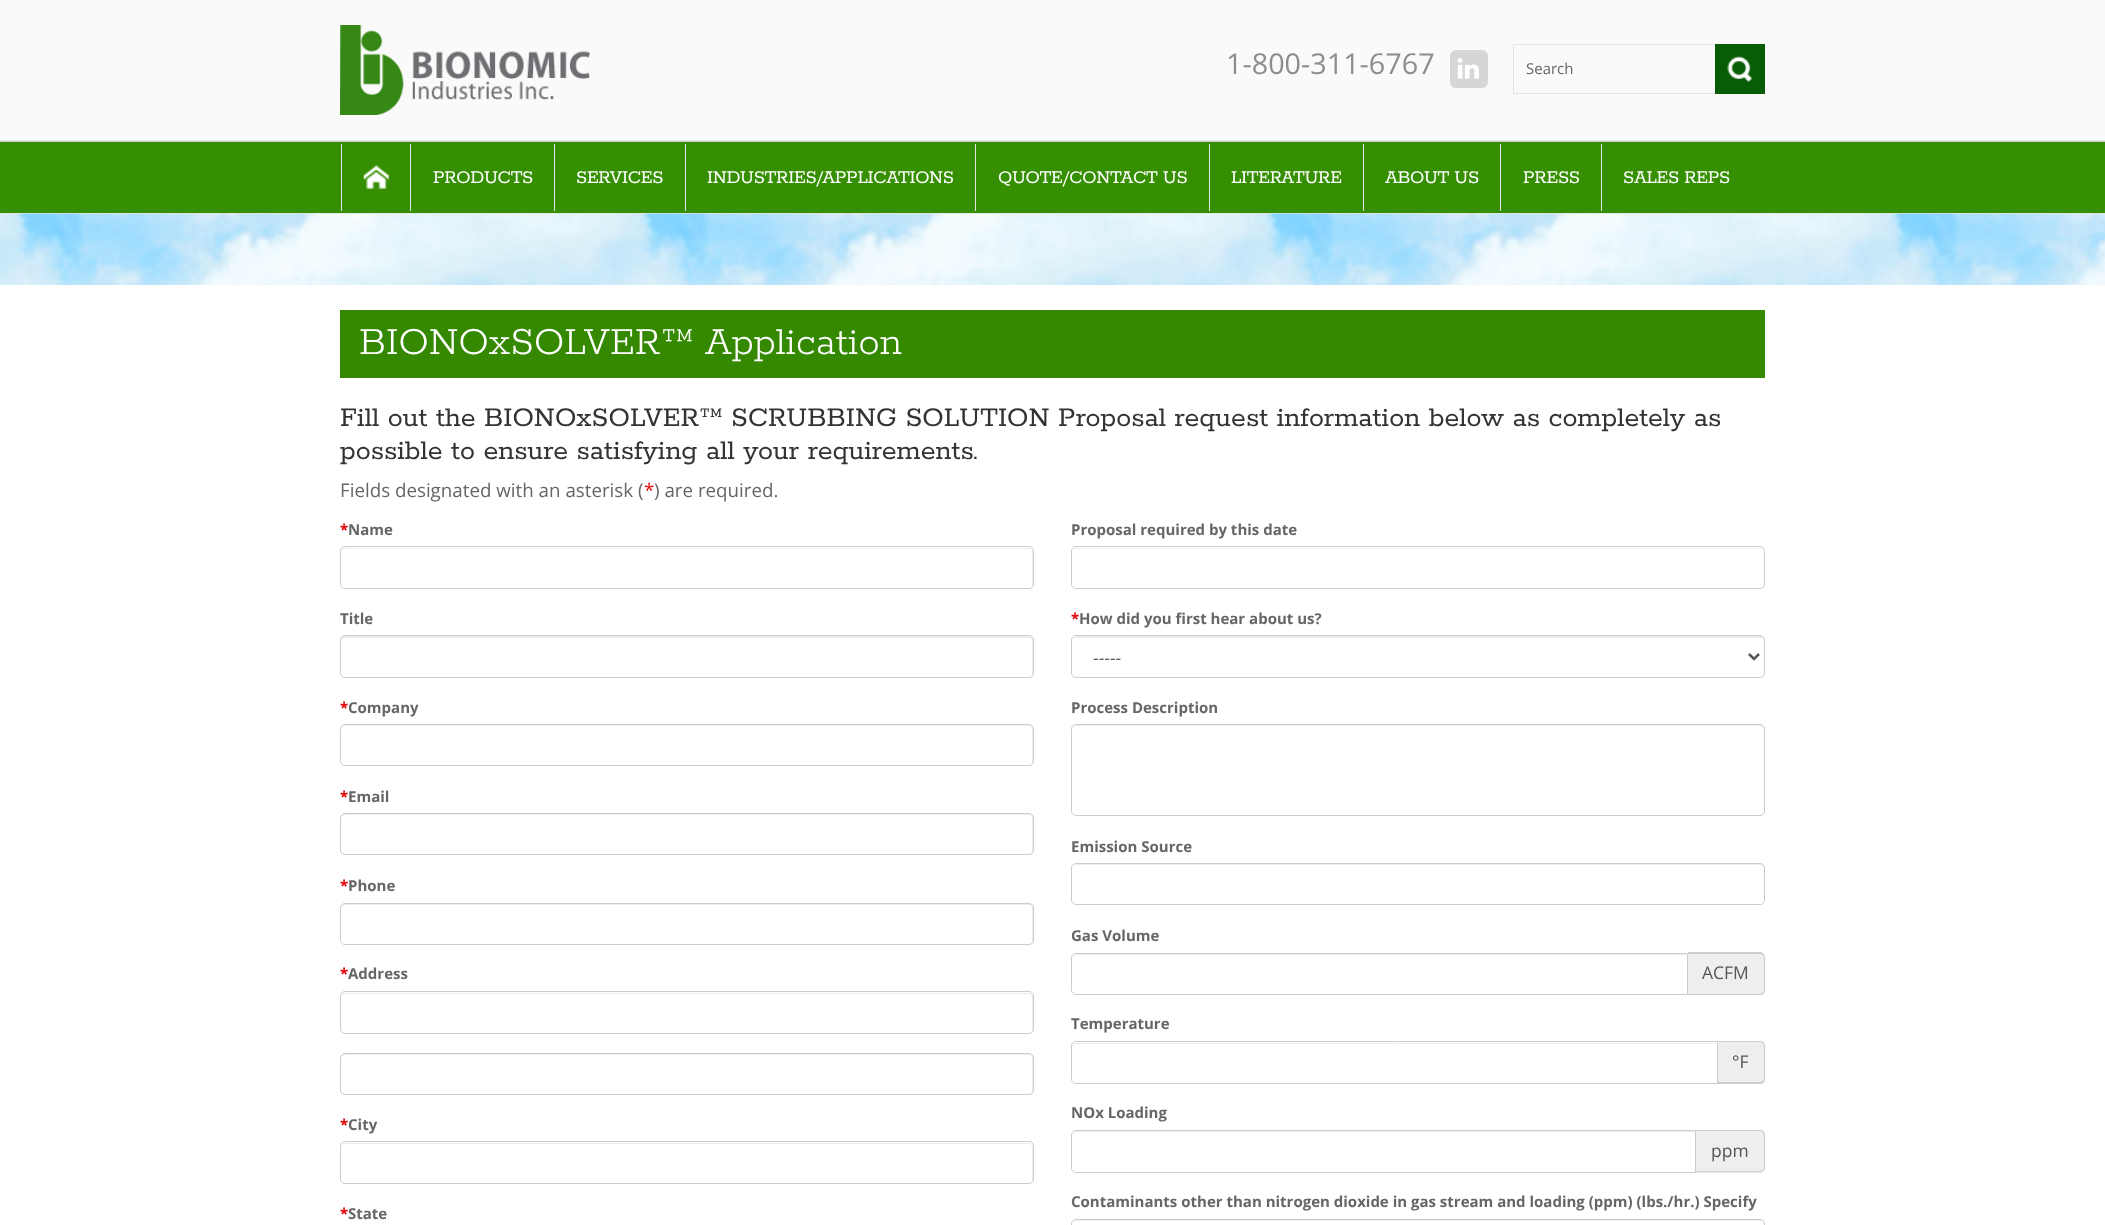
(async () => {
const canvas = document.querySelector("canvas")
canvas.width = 2105
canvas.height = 1225
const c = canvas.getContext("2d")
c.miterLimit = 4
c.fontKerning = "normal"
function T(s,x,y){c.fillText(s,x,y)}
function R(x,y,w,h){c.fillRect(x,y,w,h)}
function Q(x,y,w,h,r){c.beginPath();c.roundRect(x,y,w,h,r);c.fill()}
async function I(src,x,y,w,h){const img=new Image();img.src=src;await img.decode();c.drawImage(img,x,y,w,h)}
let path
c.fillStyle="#fff"
R(0,0,2105,1225)
c.fillStyle="#fafafa"
R(0,0,2105,140)
c.fillStyle="#e5e5e5"
R(0,140,2105,1)
await I("1.png",340,25,250,90)
c.font="28.75px Open Sans"
c.fillStyle="#8d8d8d"
T("1-800-311-6767",1226,74)
c.fillStyle="#d6d6d6"
Q(1450,50,38,38,6)
await I("2.png",1457,58,22,21)
c.strokeStyle="#e4e4e4"
c.strokeRect(1513.5,44.5,251,49)
c.font="15px Open Sans"
c.fillStyle="#666"
T("Search",1526,74)
c.fillStyle="#075c05"
R(1715,44,50,50)
await I("3.png",1727,56,26,27)
c.fillStyle="#368f00"
R(0,142,2105,71)
c.fillStyle="#ccc"
R(0,141,2105,1)
c.fillStyle="#e5e5e5"
R(0,213,2105,1)
await I("4.png",363,165,26,24)
R(341,144,1,67)
R(410,144,1,67)
c.letterSpacing="-0.35px"
c.font="20px Rokkitt"
c.fillStyle="#fff"
T("PRODUCTS",433,183)
c.fillStyle="#e5e5e5"
R(554,144,1,67)
c.fillStyle="#fff"
T("SERVICES",576,183)
c.fillStyle="#e5e5e5"
R(685,144,1,67)
c.fillStyle="#fff"
T("INDUSTRIES/APPLICATIONS",707,183)
c.fillStyle="#e5e5e5"
R(975,144,1,67)
c.fillStyle="#fff"
T("QUOTE/CONTACT US",998,183)
c.fillStyle="#e5e5e5"
R(1209,144,1,67)
c.fillStyle="#fff"
T("LITERATURE",1231,183)
c.fillStyle="#e5e5e5"
R(1363,144,1,67)
c.fillStyle="#fff"
T("ABOUT US",1385,183)
c.fillStyle="#e5e5e5"
R(1500,144,1,67)
c.fillStyle="#fff"
T("PRESS",1523,183)
c.fillStyle="#e5e5e5"
R(1601,144,1,67)
c.fillStyle="#fff"
T("SALES REPS",1623,183)
await I("5.png",0,213,2105,72)
c.fillStyle="#348900"
R(340,310,1425,68)
c.letterSpacing="0px"
c.font="300 42.5px Rokkitt"
c.fillStyle="#fff"
T("BIONOxSOLVER™ Application",359,354)
c.font="30px Rokkitt"
c.fillStyle="#333"
T("Fill out the BIONOxSOLVER™ SCRUBBING SOLUTION Proposal request information below as completely as",340,426)
T("possible to ensure satisfying all your requirements.",340,459)
c.font="18.75px Open Sans"
c.fillStyle="#666"
T("Fields designated with an asterisk (",340,497)
c.fillStyle="#e10003"
T("*",644,497)
c.fillStyle="#666"
T(") are required.",654,497)
c.font="bold 15px Open Sans"
c.fillStyle="#e10003"
T("*",340,535)
c.fillStyle="#666"
T("Name",348,535)
c.fillStyle="#ececec"
path = new Path2D("M345 549h684c2 0 3 1 3 3v35c0-1 1-2 1-3v-32c0-2-2-4-4-4h-684c-2 0-4 2-4 4c0-2 2-3 4-3z")
c.fill(path)
c.beginPath()
c.roundRect(340.5,546.5,693,42,4.5)
c.strokeStyle="#ccc"
c.stroke()
c.fillStyle="#666"
T("Title",340,624)
c.fillStyle="#ececec"
path = new Path2D("M345 638h684c2 0 3 1 3 3v34c1-1 1-2 1-3v-32c0-2-2-4-4-4h-684c-2 0-4 2-4 4v1c0-2 2-3 4-3z")
c.fill(path)
c.beginPath()
c.roundRect(340.5,635.5,693,42,4.5)
c.stroke()
c.fillStyle="#e10003"
T("*",340,713)
c.fillStyle="#666"
T("Company",348,713)
c.fillStyle="#ececec"
path = new Path2D("M345 726h684c2 0 3 2 3 4v34c1-1 1-2 1-3v-32c0-2-2-4-4-4h-684c-2 0-4 2-4 4v1c0-2 2-4 4-4z")
c.fill(path)
c.beginPath()
c.roundRect(340.5,724.5,693,41,4.5)
c.stroke()
c.fillStyle="#e10003"
T("*",340,802)
c.fillStyle="#666"
T("Email",348,802)
c.fillStyle="#ececec"
path = new Path2D("M345 815h684c2 0 3 2 3 4v34c0-1 1-2 1-3v-32c0-2-2-4-4-4h-684c-2 0-4 2-4 4v1c0-2 2-4 4-4z")
c.fill(path)
c.beginPath()
c.roundRect(340.5,813.5,693,41,4.5)
c.stroke()
c.fillStyle="#e10003"
T("*",340,891)
c.fillStyle="#666"
T("Phone",348,891)
c.fillStyle="#ececec"
path = new Path2D("M345 905h684c2 0 3 2 3 4v34c0-1 1-2 1-3v-32c0-2-2-4-4-4h-684c-2 0-4 2-4 4v1c0-2 2-4 4-4z")
c.fill(path)
c.beginPath()
c.roundRect(340.5,903.5,693,41,4.5)
c.stroke()
c.fillStyle="#e10003"
T("*",340,979)
c.fillStyle="#666"
T("Address",348,979)
c.fillStyle="#ececec"
path = new Path2D("M345 994h684c2 0 3 1 3 4v34c0-1 1-2 1-3v-32c0-2-2-4-4-4h-684c-2 0-4 2-4 4v1c0-3 2-4 4-4z")
c.fill(path)
c.beginPath()
c.roundRect(340.5,991.5,693,42,4.5)
c.stroke()
path = new Path2D("M345 1055h684c2 0 3 2 3 4v34c0-1 1-2 1-3v-32c0-2-2-4-4-4h-684c-2 0-4 2-4 4v1c0-2 2-4 4-4z")
c.fill(path)
c.beginPath()
c.roundRect(340.5,1053.5,693,41,4.5)
c.stroke()
c.fillStyle="#e10003"
T("*",340,1130)
c.fillStyle="#666"
T("City",348,1130)
c.fillStyle="#ececec"
path = new Path2D("M345 1144h684c2 0 3 1 3 4v34c0-1 1-2 1-3v-32c0-2-2-4-4-4h-684c-2 0-4 2-4 4v1c0-3 2-4 4-4z")
c.fill(path)
c.beginPath()
c.roundRect(340.5,1141.5,693,42,4.5)
c.stroke()
c.fillStyle="#e10003"
T("*",340,1219)
c.fillStyle="#666"
T("State",348,1219)
T("Proposal required by this date",1071,535)
c.fillStyle="#ececec"
path = new Path2D("M1076 549h684c2 0 4 1 4 3c0-2-2-4-4-4h-683c-1 0-2 1-3 1z")
c.fill(path)
c.beginPath()
c.roundRect(1071.5,546.5,693,42,4.5)
c.stroke()
c.fillStyle="#e10003"
T("*",1071,624)
c.fillStyle="#666"
T("How did you first hear about us?",1079,624)
c.fillStyle="#ececec"
path = new Path2D("M1076 638h684c2 0 4 1 4 3v-1c0-2-2-4-4-4h-683c-2 0-3 1-4 3z")
c.fill(path)
c.beginPath()
c.roundRect(1071.5,635.5,693,42,4.5)
c.stroke()
path = new Path2D("M1749 654l5 5l5-5")
c.strokeStyle="#555"
c.lineWidth=2.5
c.stroke(path)
c.font="17.5px Open Sans"
c.fillStyle="#555"
T("-----",1093,664)
c.font="bold 15px Open Sans"
c.fillStyle="#666"
T("Process Description",1071,713)
c.fillStyle="#ececec"
path = new Path2D("M1076 726h684c2 0 4 2 4 4v-1c0-2-2-4-4-4h-683c-1 0-3 1-3 2z")
c.fill(path)
c.beginPath()
c.roundRect(1071.5,724.5,693,91,4.5)
c.strokeStyle="#ccc"
c.lineWidth=1
c.stroke()
c.fillStyle="#666"
T("Emission Source",1071,852)
c.fillStyle="#ececec"
path = new Path2D("M1076 865h684c2 0 4 2 4 4v-1c0-2-2-4-4-4h-683c-1 0-3 1-3 2z")
c.fill(path)
c.beginPath()
c.roundRect(1071.5,863.5,693,41,4.5)
c.stroke()
c.fillStyle="#666"
T("Gas Volume",1071,941)
c.fillStyle="#ececec"
path = new Path2D("M1076 955h610v-1h-609c-1 0-3 1-3 2z")
c.fill(path)
c.beginPath()
c.roundRect(1071.5,953.5,616,41,[4.5,0,0,4.5])
c.stroke()
c.fillStyle="#eee"
c.beginPath()
c.roundRect(1688,953,77,42,[0,5,5,0])
c.fill()
c.fillStyle="#ccc"
path = new Path2D("M1688 952h72c3 0 5 3 5 6v32c0 3-2 5-5 5h-72zm0 2h72c2 0 4 1 4 4v32c0 2-2 4-4 4h-72z")
c.fill(path,"evenodd")
c.font="17.5px Open Sans"
c.fillStyle="#555"
T("ACFM",1702,979)
c.font="bold 15px Open Sans"
c.fillStyle="#666"
T("Temperature",1071,1029)
c.fillStyle="#ececec"
path = new Path2D("M1076 1044h640v-1h-639c-1 0-2 1-3 1z")
c.fill(path)
c.beginPath()
c.roundRect(1071.5,1041.5,646,42,[4.5,0,0,4.5])
c.stroke()
c.fillStyle="#eee"
c.beginPath()
c.roundRect(1718,1041,47,43,[0,5,5,0])
c.fill()
c.fillStyle="#ccc"
path = new Path2D("M1718 1041h42c3 0 5 2 5 5v33c0 3-2 5-5 5h-42zm0 1h42c2 0 4 2 4 4v33c0 2-2 3-4 3h-42z")
c.fill(path,"evenodd")
c.font="17.5px Open Sans"
c.fillStyle="#555"
T("°F",1732,1068)
c.font="bold 15px Open Sans"
c.fillStyle="#666"
T("NOx Loading",1071,1118)
c.fillStyle="#ececec"
path = new Path2D("M1076 1132h619v-1h-618c-1 0-3 1-3 2z")
c.fill(path)
c.beginPath()
c.roundRect(1071.5,1130.5,624,42,[4.5,0,0,4.5])
c.stroke()
c.fillStyle="#eee"
c.beginPath()
c.roundRect(1696,1130,69,43,[0,5,5,0])
c.fill()
c.fillStyle="#ccc"
path = new Path2D("M1696 1130h64c3 0 5 2 5 5v33c0 2-2 4-5 4h-64zm0 1h64c2 0 4 2 4 4v33c0 2-2 3-4 3h-64z")
c.fill(path,"evenodd")
c.font="17.5px Open Sans"
c.fillStyle="#555"
T("ppm",1711,1157)
c.font="bold 15px Open Sans"
c.fillStyle="#666"
T("Contaminants other than nitrogen dioxide in gas stream and loading (ppm) (lbs./hr.) Specify",1071,1207)
c.fillStyle="#ececec"
path = new Path2D("M1076 1221h684c2 0 4 2 4 4v-1c0-2-2-4-4-4h-683c-1 0-3 1-3 2z")
c.fill(path)
c.beginPath()
c.roundRect(1071.5,1219.5,693,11,4.5)
c.stroke()
})()
